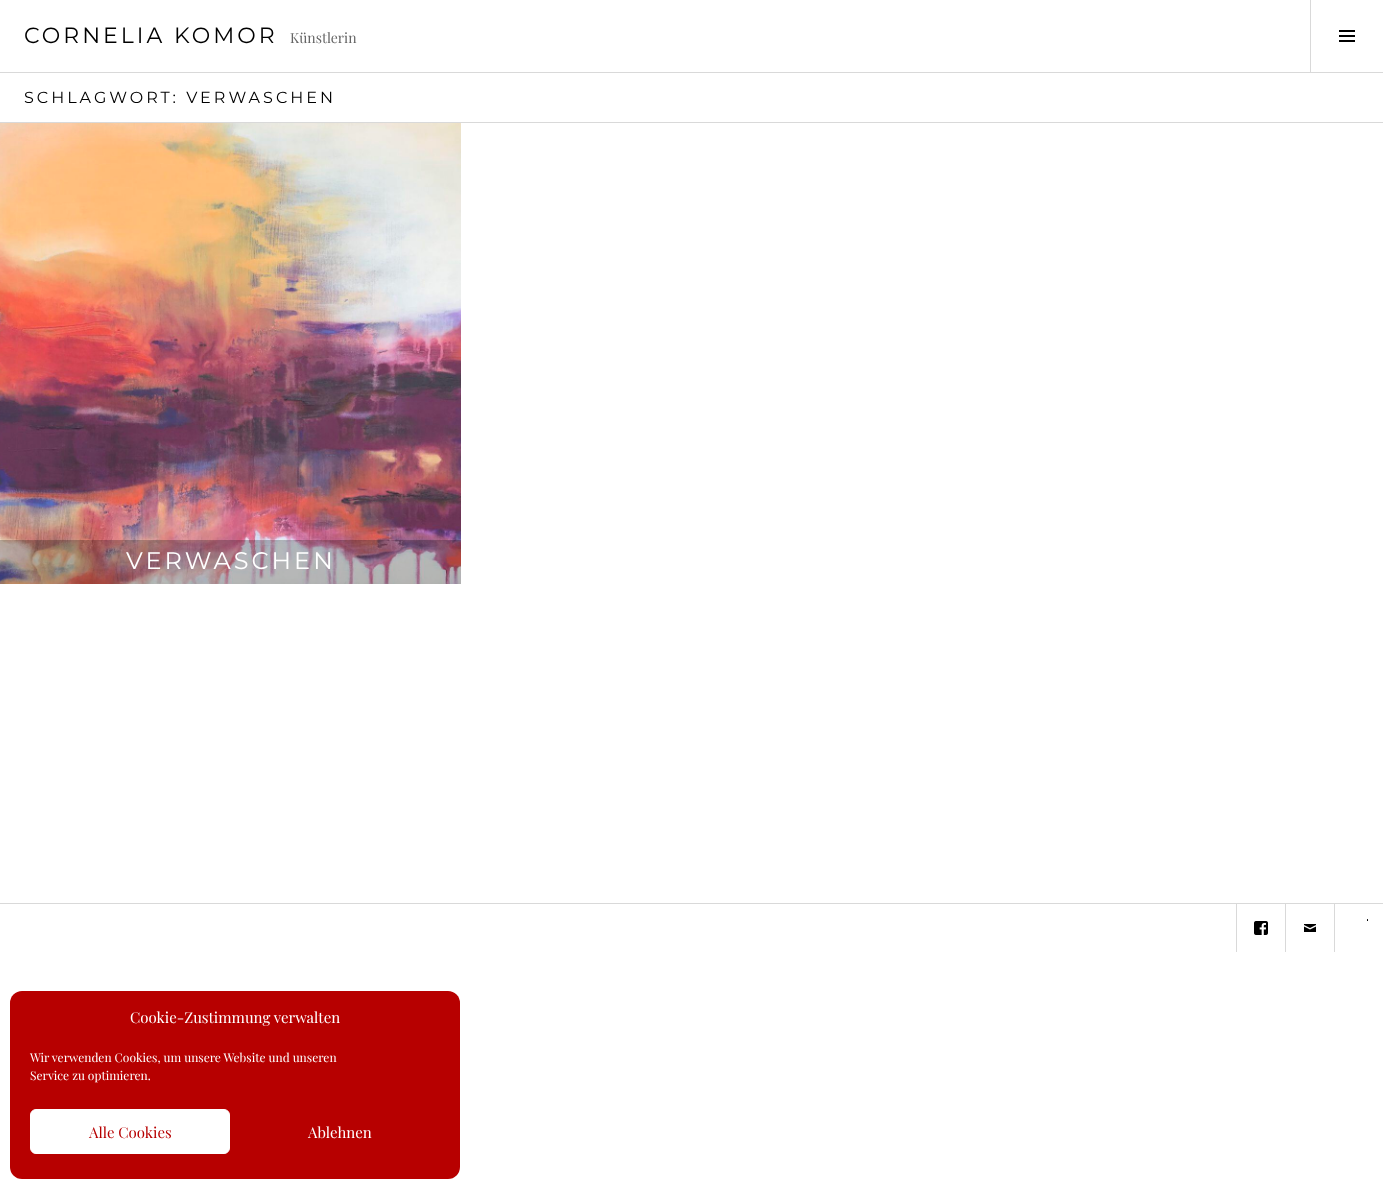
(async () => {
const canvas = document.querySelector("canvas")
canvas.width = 1383
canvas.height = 1189
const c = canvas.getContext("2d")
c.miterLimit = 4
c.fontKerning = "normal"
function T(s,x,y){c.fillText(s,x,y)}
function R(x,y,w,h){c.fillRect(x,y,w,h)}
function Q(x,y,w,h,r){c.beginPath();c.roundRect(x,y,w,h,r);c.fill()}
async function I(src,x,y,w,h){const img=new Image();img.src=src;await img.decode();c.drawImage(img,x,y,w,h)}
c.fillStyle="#fff"
R(0,0,1383,1189)
c.fillStyle="#d9d9d9"
R(0,72,1383,1)
c.letterSpacing="3px"
c.font="100 22px Montserrat"
c.fillStyle="#000"
T("CORNELIA KOMOR",24,43)
c.letterSpacing="0px"
c.font="14px Playfair Display"
c.fillStyle="#666"
T("Künstlerin",290,43)
c.fillStyle="#d9d9d9"
R(1310,0,1,72)
await I("1.png",1339,30,16,12)
R(0,122,1383,1)
c.letterSpacing="3px"
c.font="100 16px Montserrat"
c.fillStyle="#000"
T("SCHLAGWORT: VERWASCHEN",24,103)
await I("2.png",0,123,461,461)
c.fillStyle="#00000040"
R(0,540,461,44)
c.font="100 24px Montserrat"
c.fillStyle="#fff"
T("VERWASCHEN",126,569)
c.fillStyle="#d9d9d9"
R(0,903,1383,1)
c.save()
c.beginPath()
c.rect(0,904,1383,48)
c.clip()
c.strokeStyle="#d9d9d9"
c.strokeRect(1236.5,903.5,49,49)
c.restore()
await I("3.png",1254,921,14,14)
c.save()
c.beginPath()
c.rect(0,904,1383,48)
c.clip()
c.strokeStyle="#d9d9d9"
c.strokeRect(1285.5,903.5,49,49)
c.restore()
await I("4.png",1304,924,12,8)
await I("5.png",1367,919,1,2)
c.fillStyle="#b70000"
Q(10,991,450,188,12)
c.letterSpacing="0px"
c.font="15px Playfair Display"
c.fillStyle="#fff"
T("Cookie-Zustimmung verwalten",130,1023)
c.font="12px Playfair Display"
T("Wir verwenden Cookies, um unsere Website und unseren",30,1062)
T("Service zu optimieren.",30,1080)
c.beginPath()
c.roundRect(30.5,1109.5,199,44,5.5)
c.fill()
c.strokeStyle="#fff"
c.stroke()
c.font="15px Playfair Display"
c.fillStyle="#b70000"
T("Alle Cookies",89,1138)
c.fillStyle="#fff"
T("Ablehnen",308,1138)
})()
